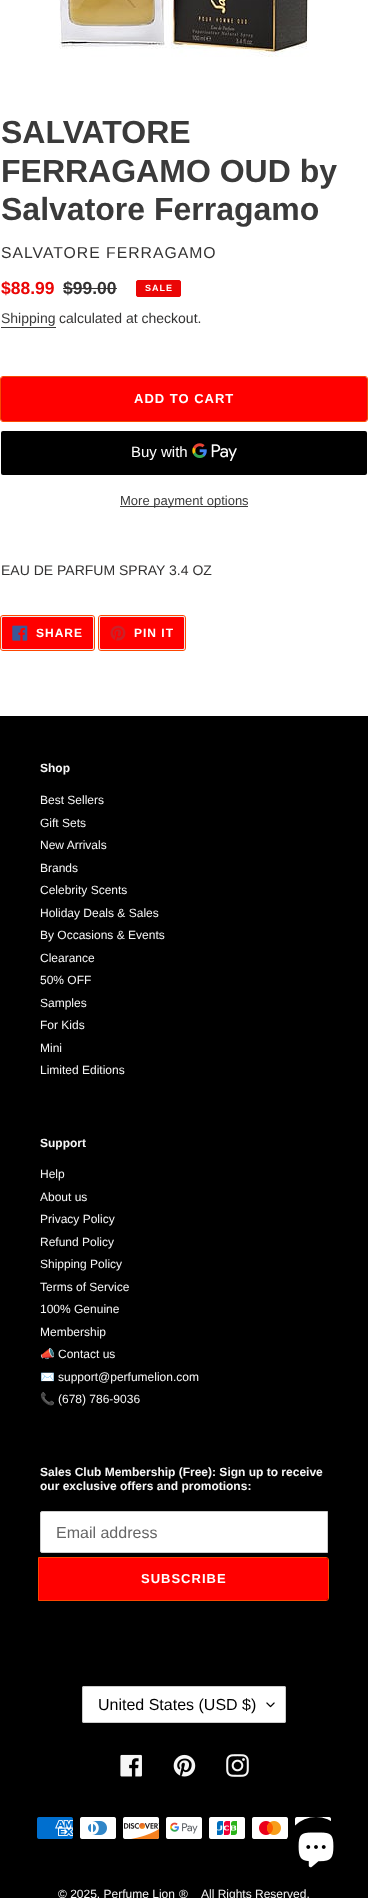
(async () => {
const canvas = document.querySelector("canvas")
canvas.width = 368
canvas.height = 1898
const c = canvas.getContext("2d")
c.miterLimit = 4
c.fontKerning = "normal"
function T(s,x,y){c.fillText(s,x,y)}
function R(x,y,w,h){c.fillRect(x,y,w,h)}
function Q(x,y,w,h,r){c.beginPath();c.roundRect(x,y,w,h,r);c.fill()}
async function I(src,x,y,w,h){const img=new Image();img.src=src;await img.decode();c.drawImage(img,x,y,w,h)}
c.fillStyle="#fff"
R(0,0,368,1898)
await I("1.png",59,0,250,57)
c.font="bold 32px Liberation Sans"
c.fillStyle="#3a3a3a"
T("SALVATORE",1,143)
T("FERRAGAMO OUD by",1,182)
T("Salvatore Ferragamo",1,220)
c.letterSpacing="1px"
c.font="15.75px Liberation Sans"
c.fillStyle="#333232"
T("SALVATORE FERRAGAMO",1,258)
c.letterSpacing="0px"
c.font="bold 17.5px Liberation Sans"
c.fillStyle="#ea0606"
T("$88.99",1,294)
c.fillStyle="#333232"
T("$99.00",63,294)
R(63,288,54,1)
c.fillStyle="#ea0606"
c.beginPath()
c.roundRect(136.5,280.5,44,16,1.5)
c.fill()
c.strokeStyle="#ea0606"
c.stroke()
c.letterSpacing="1px"
c.font="bold 9px Liberation Sans"
c.fillStyle="#fff"
T("SALE",145,291)
c.letterSpacing="0px"
c.font="14px Liberation Sans"
c.fillStyle="#3a3a3a"
T("Shipping",1,323)
R(1,327,55,1)
c.fillStyle="#333232"
T("calculated at checkout.",59,323)
c.beginPath()
c.roundRect(.5,376.5,367,45,2.5)
c.strokeStyle="#ff4500"
c.stroke()
c.fillStyle="#f00"
c.beginPath()
c.roundRect(1.5,377.5,365,43,1.5)
c.fill()
c.strokeStyle="#ea0606"
c.stroke()
c.letterSpacing="1px"
c.font="bold 13px Liberation Sans"
c.fillStyle="#fff"
T("ADD TO CART",134,403)
c.fillStyle="#000"
Q(1,431,366,44,2)
c.letterSpacing="0px"
c.font="15px Liberation Sans"
c.fillStyle="#fff"
T("Buy with",131,457)
await I("2.png",192,443,45,18)
c.fillStyle="#3a3a3a"
R(120,506,128,1)
c.font="13px Liberation Sans"
T("More payment options",120,505)
c.font="14px Liberation Sans"
c.fillStyle="#333232"
T("EAU DE PARFUM SPRAY 3.4 OZ",1,575)
c.beginPath()
c.roundRect(.5,615.5,94,35,2.5)
c.strokeStyle="#ff4500"
c.stroke()
c.fillStyle="#f00"
c.beginPath()
c.roundRect(1.5,616.5,92,33,1.5)
c.fill()
c.strokeStyle="#ebebeb"
c.stroke()
await I("3.png",12,625,16,16)
c.letterSpacing="1px"
c.font="bold 12px Liberation Sans"
c.fillStyle="#fff"
T("SHARE",36,637)
c.beginPath()
c.roundRect(98.5,615.5,87,35,2.5)
c.strokeStyle="#ff4500"
c.stroke()
c.fillStyle="#f00"
c.beginPath()
c.roundRect(99.5,616.5,85,33,1.5)
c.fill()
c.strokeStyle="#ebebeb"
c.stroke()
await I("4.png",110,625,16,16)
c.fillStyle="#fff"
T("PIN IT",134,637)
c.fillStyle="#000"
R(0,716,368,1182)
c.letterSpacing="0px"
c.fillStyle="#f6f6f6"
T("Shop",40,772)
c.font="12px Liberation Sans"
T("Best Sellers",40,804)
T("Gift Sets",40,827)
T("New Arrivals",40,849)
T("Brands",40,872)
T("Celebrity Scents",40,894)
T("Holiday Deals & Sales",40,917)
T("By Occasions & Events",40,939)
T("Clearance",40,962)
T("50% OFF",40,984)
T("Samples",40,1007)
T("For Kids",40,1029)
T("Mini",40,1052)
T("Limited Editions",40,1074)
c.font="bold 12px Liberation Sans"
T("Support",40,1147)
c.font="12px Liberation Sans"
T("Help",40,1178)
T("About us",40,1201)
T("Privacy Policy",40,1223)
T("Refund Policy",40,1246)
T("Shipping Policy",40,1268)
T("Terms of Service",40,1291)
T("100% Genuine",40,1313)
T("Membership",40,1336)
c.font="12px Noto Color Emoji"
T("📣",40,1358)
c.font="12px Liberation Sans"
T("Contact us",58,1358)
c.font="12px Noto Color Emoji"
T("✉️",40,1381)
c.font="12px Liberation Sans"
T("support@perfumelion.com",58,1381)
c.font="12px Noto Color Emoji"
T("📞",40,1403)
c.font="12px Liberation Sans"
T("(678) 786-9036",58,1403)
c.font="bold 12px Liberation Sans"
T("Sales Club Membership (Free): Sign up to receive",40,1476)
T("our exclusive offers and promotions:",40,1490)
c.fillStyle="#fff"
c.beginPath()
c.roundRect(40.5,1511.5,287,41,[1.5,0,0,1.5])
c.fill()
c.strokeStyle="#ccc"
c.stroke()
c.font="16px Liberation Sans"
c.fillStyle="#666"
T("Email address",56,1538)
c.beginPath()
c.roundRect(38.5,1557.5,290,43,[0,2.5,2.5,0])
c.strokeStyle="#ff4500"
c.stroke()
c.fillStyle="#f00"
c.beginPath()
c.roundRect(39,1558,289,42,[0,2,2,0])
c.fill()
c.letterSpacing="1px"
c.font="bold 13px Liberation Sans"
c.fillStyle="#fff"
T("SUBSCRIBE",141,1583)
Q(82,1686,204,37,2)
await I("5.png",266,1702,9,6)
c.beginPath()
c.roundRect(82.5,1686.5,203,36,1.5)
c.strokeStyle="#ccc"
c.stroke()
c.letterSpacing="0px"
c.font="16px Liberation Sans"
c.fillStyle="#000"
T("United States (USD $)",98,1710)
await I("6.png",120,1754,22,23)
await I("7.png",173,1754,23,23)
await I("8.png",226,1754,23,23)
await I("9.png",37,1817,36,22)
await I("10.png",80,1817,36,22)
await I("11.png",123,1817,37,22)
await I("12.png",166,1817,36,22)
await I("13.png",209,1817,36,22)
await I("14.png",252,1817,36,22)
await I("15.png",295,1817,36,9)
c.font="12px Liberation Sans"
c.fillStyle="#f6f6f6"
T("© 2025, Perfume Lion",58,1898)
T("®",179,1898)
T("All Rights Reserved.",201,1898)
c.fillStyle="#000"
c.beginPath()
c.arc(316,1847,30,0,7)
c.fill()
await I("16.png",298,1832,36,36)
})()
